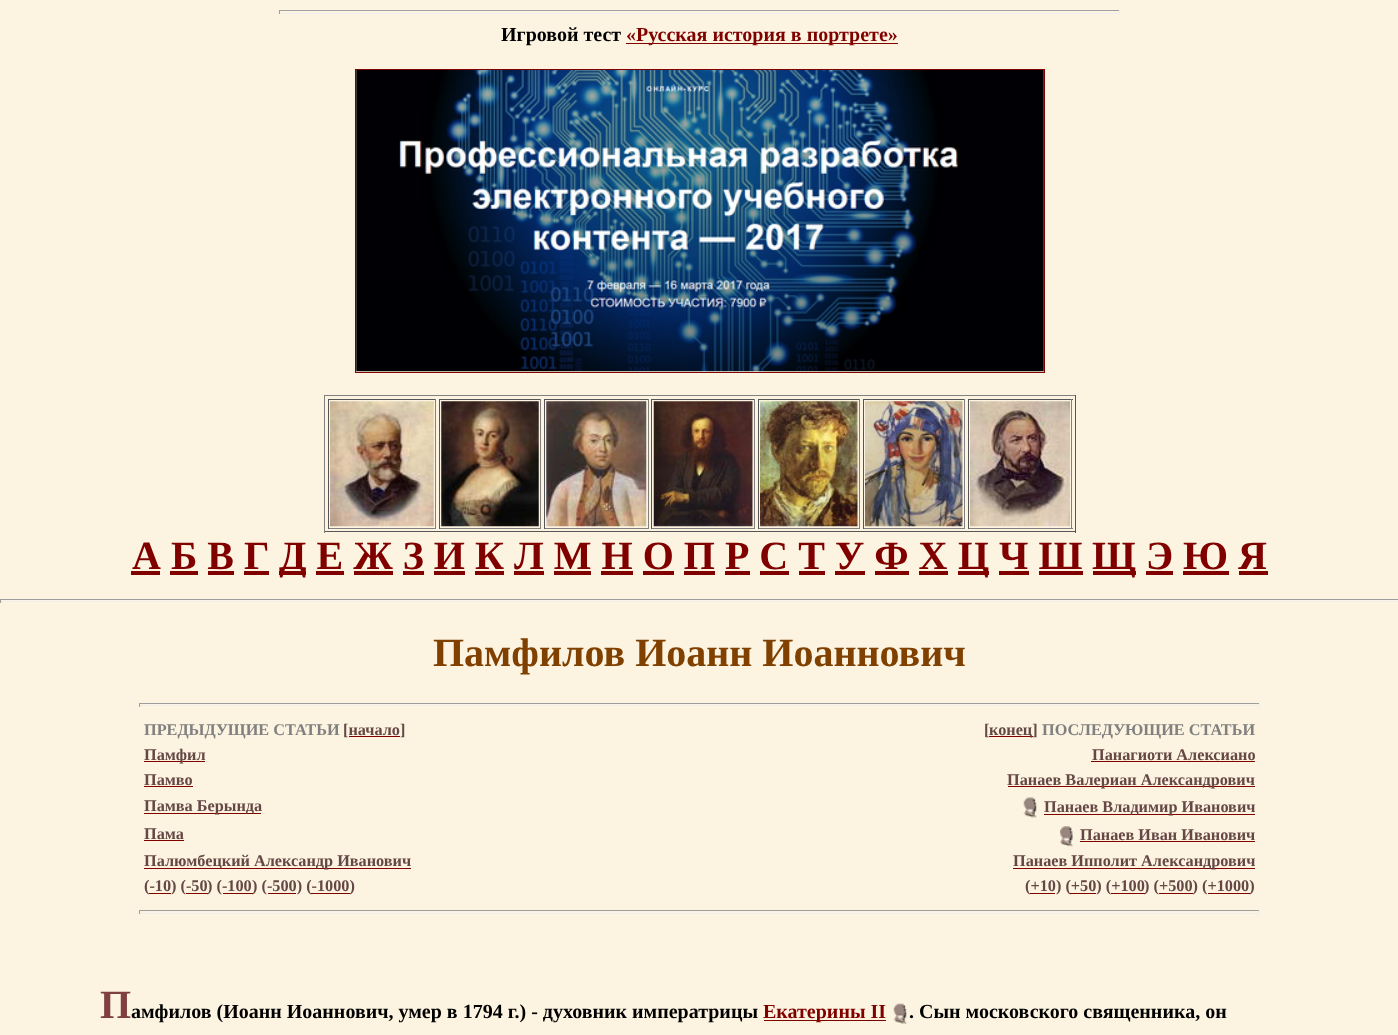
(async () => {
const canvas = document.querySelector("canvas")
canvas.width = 1398
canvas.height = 1035
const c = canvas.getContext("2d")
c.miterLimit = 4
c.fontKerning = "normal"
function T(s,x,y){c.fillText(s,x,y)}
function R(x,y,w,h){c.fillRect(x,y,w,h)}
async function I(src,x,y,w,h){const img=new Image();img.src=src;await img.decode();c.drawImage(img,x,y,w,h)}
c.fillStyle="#fcf4e1"
R(0,0,1398,1035)
c.fillStyle="#9f9f9f"
R(279,10,841,1)
c.fillStyle="#eee"
R(1119,10,1,4)
R(279,13,841,1)
c.fillStyle="#9f9f9f"
R(279,10,1,4)
c.font="bold 20px Liberation Serif"
c.fillStyle="#000"
T("Игровой тест",501,41)
c.fillStyle="#800000"
R(626,43,272,1)
T("«Русская история в портрете»",626,41)
c.strokeStyle="#800000"
c.strokeRect(355.5,69.5,689,303)
await I("1.png",356,70,688,302)
c.fillStyle="#808080"
R(324,395,752,1)
c.fillStyle="#555"
R(1075,395,1,138)
R(324,531,752,1)
c.fillStyle="#808080"
R(324,395,1,138)
c.fillStyle="#555"
R(328,399,108,1)
c.fillStyle="#808080"
R(435,399,1,130)
R(328,528,108,1)
c.fillStyle="#555"
R(328,399,1,130)
await I("2.png",330,401,104,126)
R(439,399,102,1)
c.fillStyle="#808080"
R(540,399,1,130)
R(439,528,102,1)
c.fillStyle="#555"
R(439,399,1,130)
await I("3.png",441,401,98,126)
R(544,399,105,1)
c.fillStyle="#808080"
R(648,399,1,130)
R(544,528,105,1)
c.fillStyle="#555"
R(544,399,1,130)
await I("4.png",546,401,101,126)
R(651,399,104,1)
c.fillStyle="#808080"
R(754,399,1,130)
R(651,528,104,1)
c.fillStyle="#555"
R(651,399,1,130)
await I("5.png",653,401,100,126)
R(758,399,102,1)
c.fillStyle="#808080"
R(859,399,1,130)
R(758,528,102,1)
c.fillStyle="#555"
R(758,399,1,130)
await I("6.png",760,401,98,126)
R(863,399,102,1)
c.fillStyle="#808080"
R(964,399,1,130)
R(863,528,102,1)
c.fillStyle="#555"
R(863,399,1,130)
await I("7.png",865,401,98,126)
R(968,399,105,1)
c.fillStyle="#808080"
R(1071,399,1,130)
R(968,528,105,1)
c.fillStyle="#555"
R(968,399,1,130)
await I("8.png",970,401,100,126)
c.font="bold 40px Liberation Serif"
c.fillStyle="#800000"
T("А Б В Г",132,569)
R(131,571,29,4)
R(279,571,27,4)
T("Д Е Ж З И К Л М Н О П Р С Т У Ф Х",279,569)
R(958,571,31,4)
T("Ц Ч Ш",958,569)
R(1093,571,43,4)
T("Щ Э Ю Я",1092,569)
R(170,571,28,4)
R(208,571,26,4)
R(244,571,25,4)
R(316,571,28,4)
R(354,571,39,4)
R(403,571,21,4)
R(434,571,31,4)
R(475,571,29,4)
R(514,571,30,4)
R(554,571,37,4)
R(601,571,32,4)
R(643,571,31,4)
R(684,571,31,4)
R(725,571,25,4)
R(760,571,29,4)
R(799,571,26,4)
R(835,571,30,4)
R(875,571,34,4)
R(919,571,29,4)
R(999,571,30,4)
R(1039,571,44,4)
R(1146,571,27,4)
R(1183,571,46,4)
R(1239,571,29,4)
c.fillStyle="#9f9f9f"
R(0,599,1398,1)
c.fillStyle="#eee"
R(0,601,1398,1)
c.fillStyle="#9f9f9f"
R(0,599,1,4)
c.fillStyle="#804000"
T("Памфилов Иоанн Иоаннович",433,666)
c.fillStyle="#9f9f9f"
R(139,703,1121,1)
c.fillStyle="#eee"
R(1259,703,1,4)
R(139,705,1121,1)
c.fillStyle="#9f9f9f"
R(139,703,1,4)
c.font="bold 16.25px Liberation Serif"
c.fillStyle="#808080"
T("ПРЕДЫДУЩИЕ СТАТЬИ",144,735)
c.fillStyle="#654745"
T("[начало]",343,735)
c.fillStyle="#800000"
R(349,736,51,1)
c.fillStyle="#654745"
T("[",984,735)
c.fillStyle="#800000"
R(989,736,44,1)
c.fillStyle="#654745"
T("конец]",989,735)
c.fillStyle="#808080"
T("ПОСЛЕДУЮЩИЕ СТАТЬИ",1042,735)
c.fillStyle="#800000"
R(144,761,61,1)
c.fillStyle="#654745"
T("Памфил",144,760)
T("Панагиоти Алексиано",1092,760)
c.fillStyle="#800000"
R(1091,761,164,1)
c.fillStyle="#654745"
T("Памво",144,785)
c.fillStyle="#800000"
R(144,786,49,1)
R(1008,786,247,1)
c.fillStyle="#654745"
T("Панаев Валериан Александрович",1007,785)
c.fillStyle="#800000"
R(144,813,117,1)
c.fillStyle="#654745"
T("Памва Берында",144,811)
await I("9.png",1023,797,14,21)
c.fillStyle="#800000"
R(1044,814,211,1)
c.fillStyle="#654745"
T("Панаев Владимир Иванович",1044,812)
T("Пама",144,839)
c.fillStyle="#800000"
R(144,840,40,1)
await I("10.png",1060,826,13,21)
c.fillStyle="#654745"
T("Панаев Иван Иванович",1080,840)
c.fillStyle="#800000"
R(1080,841,175,1)
R(144,868,267,1)
c.fillStyle="#654745"
T("Палюмбецкий Александр Иванович",144,866)
c.fillStyle="#800000"
R(1013,868,242,1)
c.fillStyle="#654745"
T("Панаев Ипполит Александрович",1013,866)
T("(-10) (-50",144,891)
c.fillStyle="#800000"
R(149,893,22,1)
R(186,893,22,1)
c.fillStyle="#654745"
T(") (-100",207,891)
c.fillStyle="#800000"
R(223,893,30,1)
c.fillStyle="#654745"
T(") (-500) (-1000)",252,891)
c.fillStyle="#800000"
R(268,893,28,1)
R(311,893,39,1)
c.fillStyle="#654745"
T("(+10) (+50) (+100",1025,891)
c.fillStyle="#800000"
R(1030,893,25,1)
R(1070,893,26,1)
R(1111,893,34,1)
c.fillStyle="#654745"
T(") (+500) (+1000)",1144,891)
c.fillStyle="#800000"
R(1159,893,34,1)
R(1208,893,42,1)
c.fillStyle="#9f9f9f"
R(139,910,1121,1)
c.fillStyle="#eee"
R(1259,910,1,4)
R(139,913,1121,1)
c.fillStyle="#9f9f9f"
R(139,910,1,4)
c.font="bold 40px Liberation Serif"
c.fillStyle="#804040"
T("П",100,1018)
c.font="bold 20px Liberation Serif"
c.fillStyle="#000"
T("амфилов (Иоанн Иоаннович, умер в 1794 г.) - духовник императрицы",131,1018)
c.fillStyle="#800000"
R(764,1020,122,1)
T("Екатерины II",763,1018)
await I("11.png",893,1003,14,21)
c.fillStyle="#000"
T(". Сын московского священника, он",909,1018)
})()
